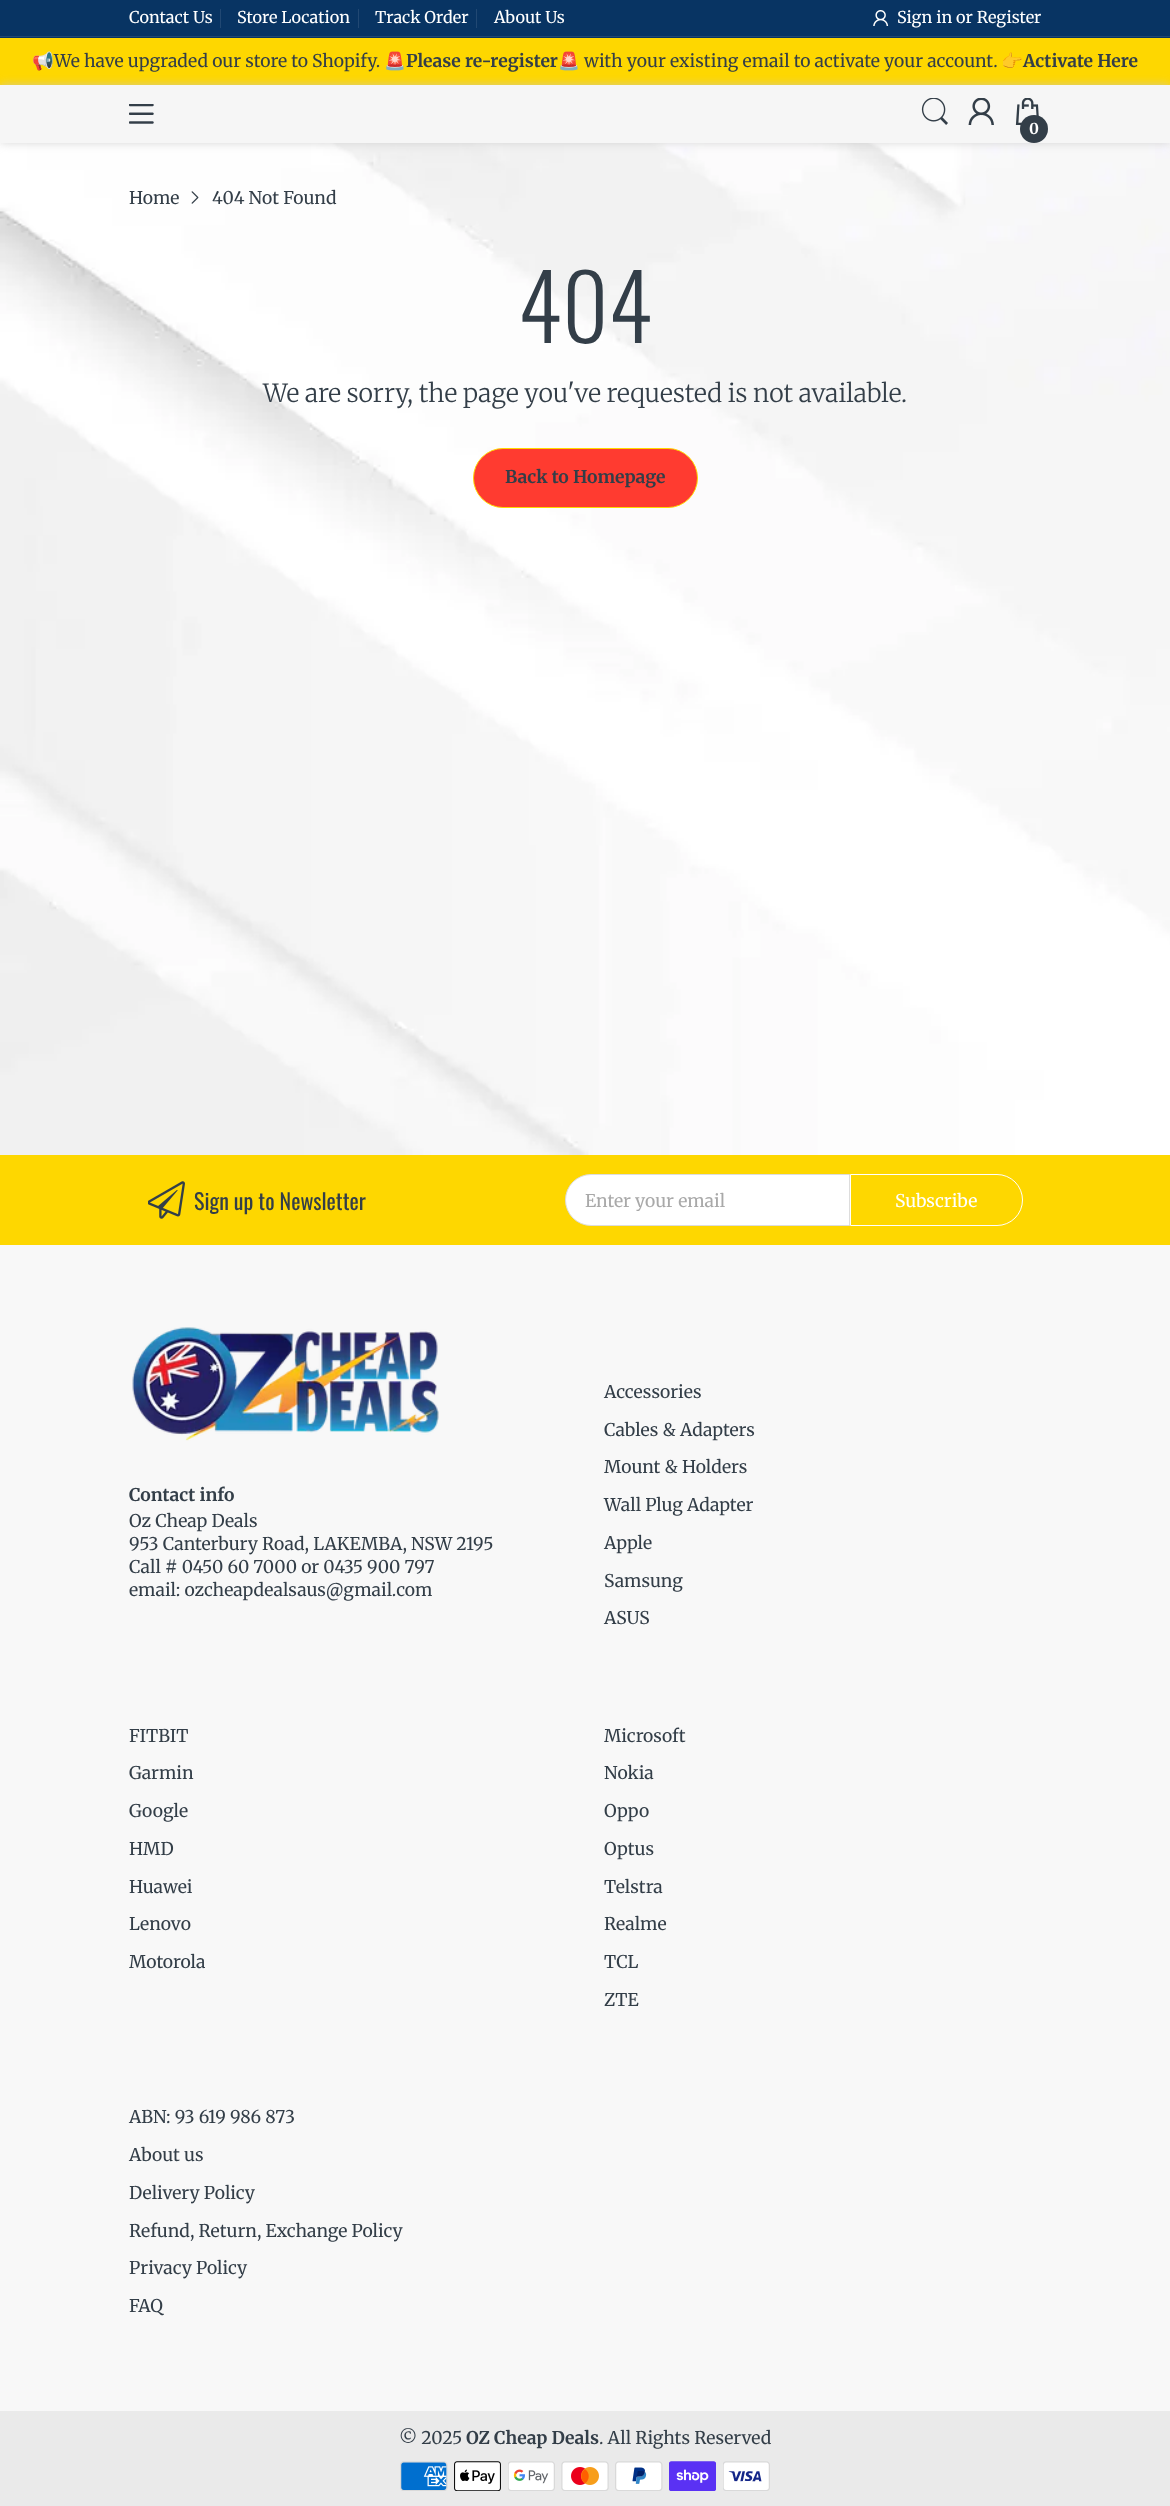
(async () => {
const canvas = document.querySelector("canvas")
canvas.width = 1170
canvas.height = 2506
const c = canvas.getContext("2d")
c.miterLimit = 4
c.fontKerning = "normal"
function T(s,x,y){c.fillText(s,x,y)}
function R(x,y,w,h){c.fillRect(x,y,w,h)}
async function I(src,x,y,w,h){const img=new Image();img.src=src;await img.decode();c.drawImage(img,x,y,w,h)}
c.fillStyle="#fff"
R(0,0,1170,2506)
await I("1.png",0,143,1170,1012)
c.fillStyle="#083463"
R(0,0,1170,38)
c.fillStyle="#214873"
R(0,36,1170,1)
c.font="16.25px Merriweather"
c.fillStyle="#fff"
T("Contact Us",129,23)
c.fillStyle="#214873"
R(220,9,1,19)
c.fillStyle="#fff"
T("Store Location",237,23)
c.fillStyle="#214873"
R(358,9,1,19)
c.fillStyle="#fff"
T("Track Order",375,23)
c.fillStyle="#214873"
R(476,9,1,19)
c.fillStyle="#fff"
T("About Us",494,23)
await I("2.png",873,10,16,16)
T("Sign in or Register",897,23)
c.fillStyle="#fed700"
R(0,38,1170,47)
c.font="17.5px Noto Color Emoji"
c.fillStyle="#333e48"
T("📢",32,67)
c.font="17.5px Merriweather"
T("We have upgraded our store to Shopify.",54,67)
c.font="17.5px Noto Color Emoji"
T("🚨",384,67)
c.font="bold 17.5px Merriweather"
T("Please re-register",406,67)
c.font="17.5px Noto Color Emoji"
T("🚨",558,67)
c.font="17.5px Merriweather"
T("with your existing email to activate your account.",584,67)
c.font="17.5px Noto Color Emoji"
T("👉",1001,67)
c.font="bold 17.5px Merriweather"
T("Activate Here",1023,67)
c.fillStyle="#c9c9c9bf"
c.filter="blur(5px)"
c.beginPath()
c.rect(0,85,1170,58)
c.fill()
c.filter="none"
c.fillStyle="#f6f6f6"
R(0,85,1170,58)
await I("3.png",129,104,25,20)
await I("4.png",921,98,27,27)
await I("5.png",968,98,26,27)
await I("6.png",1015,98,24,27)
c.fillStyle="#333e48"
c.beginPath()
c.arc(1034,129,14,0,7)
c.fill()
c.font="bold 15px Merriweather"
c.fillStyle="#fff"
T("0",1029,134)
c.font="17.5px Merriweather"
c.fillStyle="#333e48"
T("Home",129,204)
await I("7.png",191,191,8,13)
T("404 Not Found",212,204)
c.font="300 90px Oswald"
T("404",518,343)
c.wordSpacing="-0.25px"
c.font="300 25px Merriweather"
T("We are sorry, the page you've requested is not available.",263,402)
c.fillStyle="#ff3b30"
c.beginPath()
c.roundRect(473.5,448.5,224,59,29.5)
c.fill()
c.strokeStyle="#fed700"
c.stroke()
c.wordSpacing="0px"
c.font="bold 17.5px Merriweather"
c.fillStyle="#333e48"
T("Back to Homepage",505,483)
c.fillStyle="#fed700"
R(0,1155,1170,90)
await I("8.png",148,1181,37,38)
c.font="22px Oswald"
c.fillStyle="#333e48"
T("Sign up to Newsletter",194,1210)
c.fillStyle="#fff"
c.beginPath()
c.roundRect(565.5,1174.5,284,51,[25.5,0,0,25.5])
c.fill()
c.strokeStyle="#ddd"
c.stroke()
c.save()
c.beginPath()
c.rect(585,1189,245,22)
c.clip()
c.font="17.5px Merriweather"
c.fillStyle="#a9a9a9"
T("Enter your email",585,1207)
c.restore()
c.beginPath()
c.roundRect(850.5,1174.5,172,51,[0,25.5,25.5,0])
c.strokeStyle="#fff"
c.stroke()
c.font="17.5px Merriweather"
T("Subscribe",895,1207)
c.fillStyle="#f8f8f8"
R(0,1245,1170,1166)
await I("9.png",132,1327,307,114)
c.font="bold 17.5px Merriweather"
c.fillStyle="#333e48"
T("Contact info",129,1501)
c.font="17.5px Merriweather"
T("Oz Cheap Deals",129,1527)
T("953 Canterbury Road, LAKEMBA, NSW 2195",129,1550)
T("Call # 0450 60 7000 or 0435 900 797",129,1573)
T("email: ozcheapdealsaus@gmail.com",129,1596)
T("Accessories",604,1398)
T("Cables & Adapters",604,1436)
T("Mount & Holders",604,1473)
T("Wall Plug Adapter",604,1511)
T("Apple",604,1549)
T("Samsung",604,1587)
T("ASUS",604,1624)
T("FITBIT",129,1742)
T("Garmin",129,1779)
T("Google",129,1817)
T("HMD",129,1855)
T("Huawei",129,1893)
T("Lenovo",129,1930)
T("Motorola",129,1968)
T("Microsoft",604,1742)
T("Nokia",604,1779)
T("Oppo",604,1817)
T("Optus",604,1855)
T("Telstra",604,1893)
T("Realme",604,1930)
T("TCL",604,1968)
T("ZTE",604,2006)
T("ABN: 93 619 986 873",129,2123)
T("About us",129,2161)
T("Delivery Policy",129,2199)
T("Refund, Return, Exchange Policy",129,2237)
T("Privacy Policy",129,2274)
T("FAQ",129,2312)
c.fillStyle="#eaeaea"
R(0,2411,1170,95)
c.fillStyle="#333e48"
T("© 2025",399,2444)
c.font="bold 17.5px Merriweather"
T("OZ Cheap Deals",466,2444)
c.font="17.5px Merriweather"
T(". All Rights Reserved",599,2444)
await I("10.png",400,2461,48,30)
await I("11.png",454,2461,47,30)
await I("12.png",508,2461,47,30)
await I("13.png",561,2461,48,30)
await I("14.png",615,2461,48,30)
await I("15.png",669,2461,47,30)
await I("16.png",723,2461,47,30)
})()
